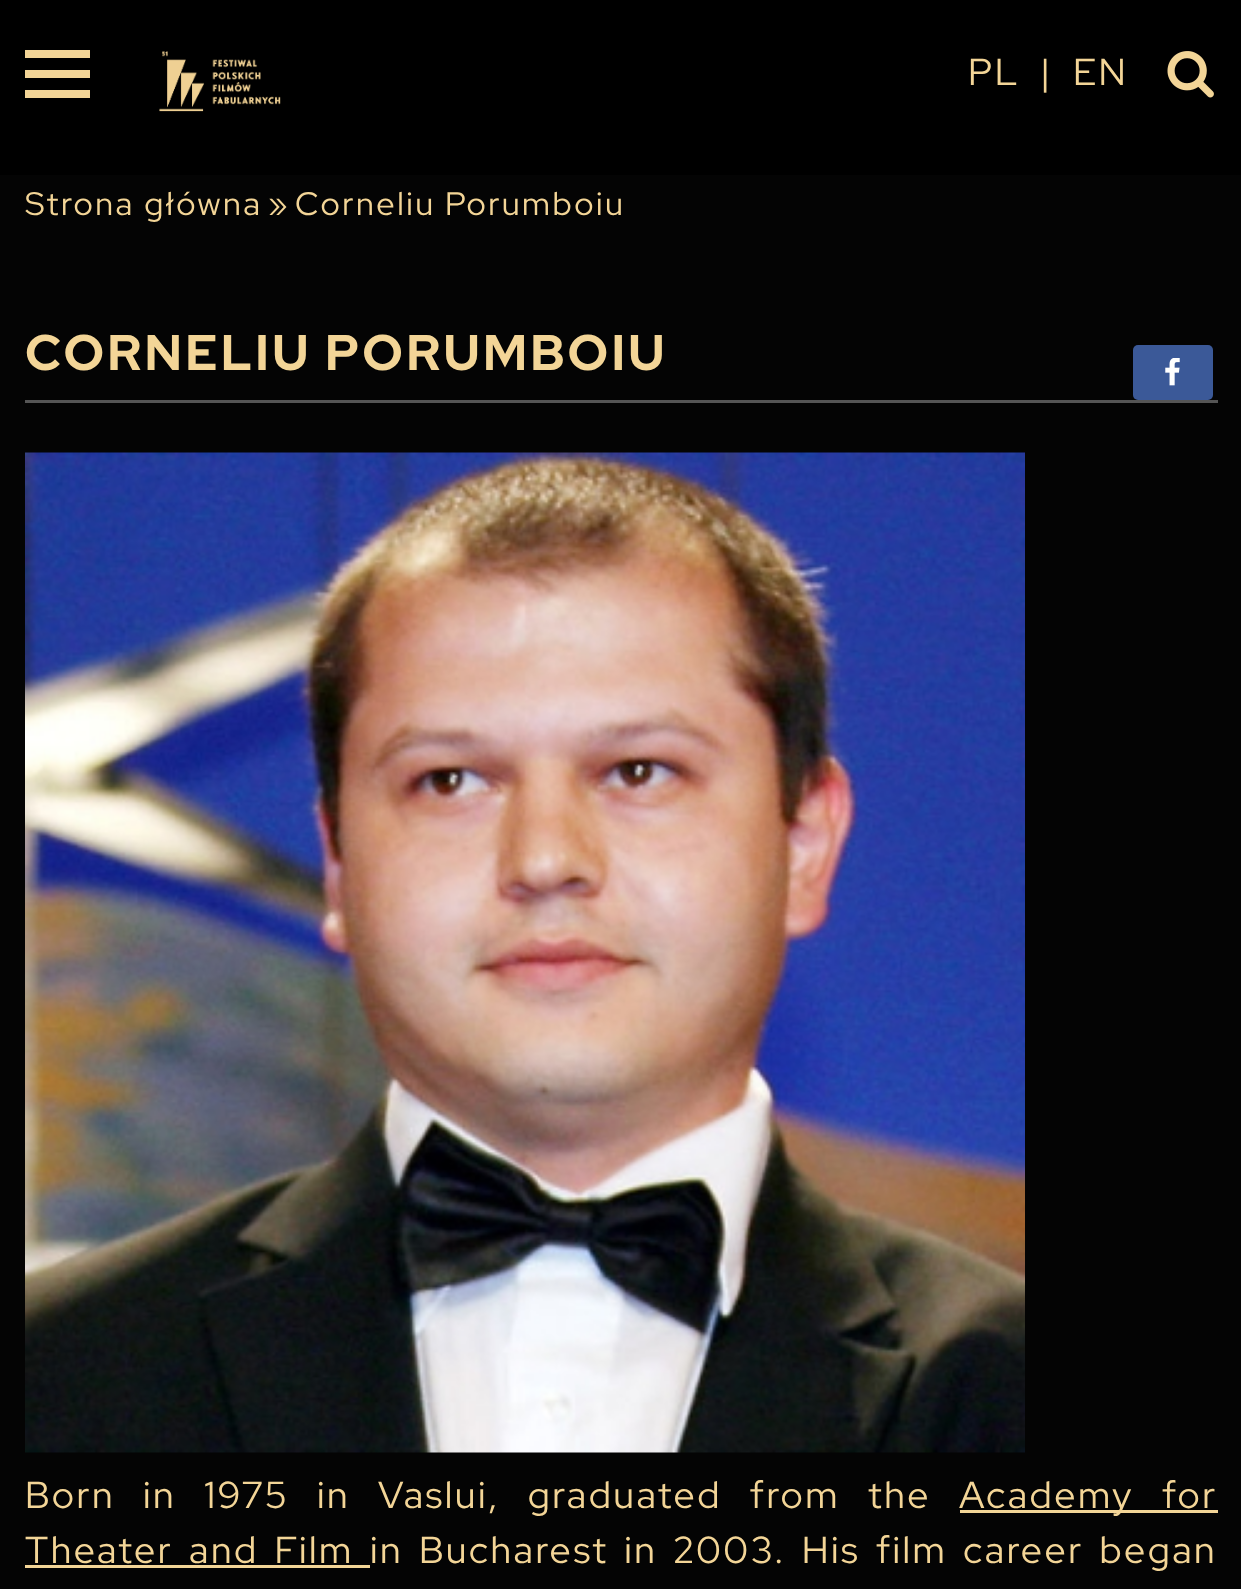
(async () => {
const canvas = document.querySelector("canvas")
canvas.width = 1241
canvas.height = 1589
const c = canvas.getContext("2d")
c.miterLimit = 4
c.fontKerning = "normal"
function T(s,x,y){c.fillText(s,x,y)}
function R(x,y,w,h){c.fillRect(x,y,w,h)}
function Q(x,y,w,h,r){c.beginPath();c.roundRect(x,y,w,h,r);c.fill()}
async function I(src,x,y,w,h){const img=new Image();img.src=src;await img.decode();c.drawImage(img,x,y,w,h)}
c.fillStyle="#040404"
R(0,0,1241,1589)
c.fillStyle="#000"
R(0,0,1241,175)
c.fillStyle="#f3d597"
R(25,90,65,8)
R(25,50,65,8)
R(25,70,65,8)
await I("1.png",159,51,122,61)
c.letterSpacing="2.5px"
c.font="37.5px Red Hat Display"
T("PL",968,85)
T("|",1040,85)
T("EN",1073,85)
await I("2.png",1167,51,47,47)
c.font="32.5px Red Hat Display"
T("Strona główna",25,215)
T("»",268,215)
T("Corneliu Porumboiu",295,215)
c.letterSpacing="3.25px"
c.font="bold 50px Red Hat Display"
T("CORNELIU PORUMBOIU",25,370)
c.fillStyle="#555"
R(25,400,1193,3)
c.fillStyle="#3b5998"
Q(1133,345,80,55,5)
await I("3.png",1165,358,15,28)
await I("4.png",25,452,1000,1001)
c.letterSpacing="2.5px"
c.wordSpacing="17.5px"
c.font="37.5px Red Hat Display"
c.fillStyle="#f3d597"
T("Born in 1975 in Vaslui, graduated from the",25,1508)
R(960,1510,258,3)
T("Academy for",959,1508)
c.wordSpacing="5.25px"
T("Theater and Film",25,1563)
R(25,1565,345,3)
T("in Bucharest in 2003. His film career began",370,1563)
})()
